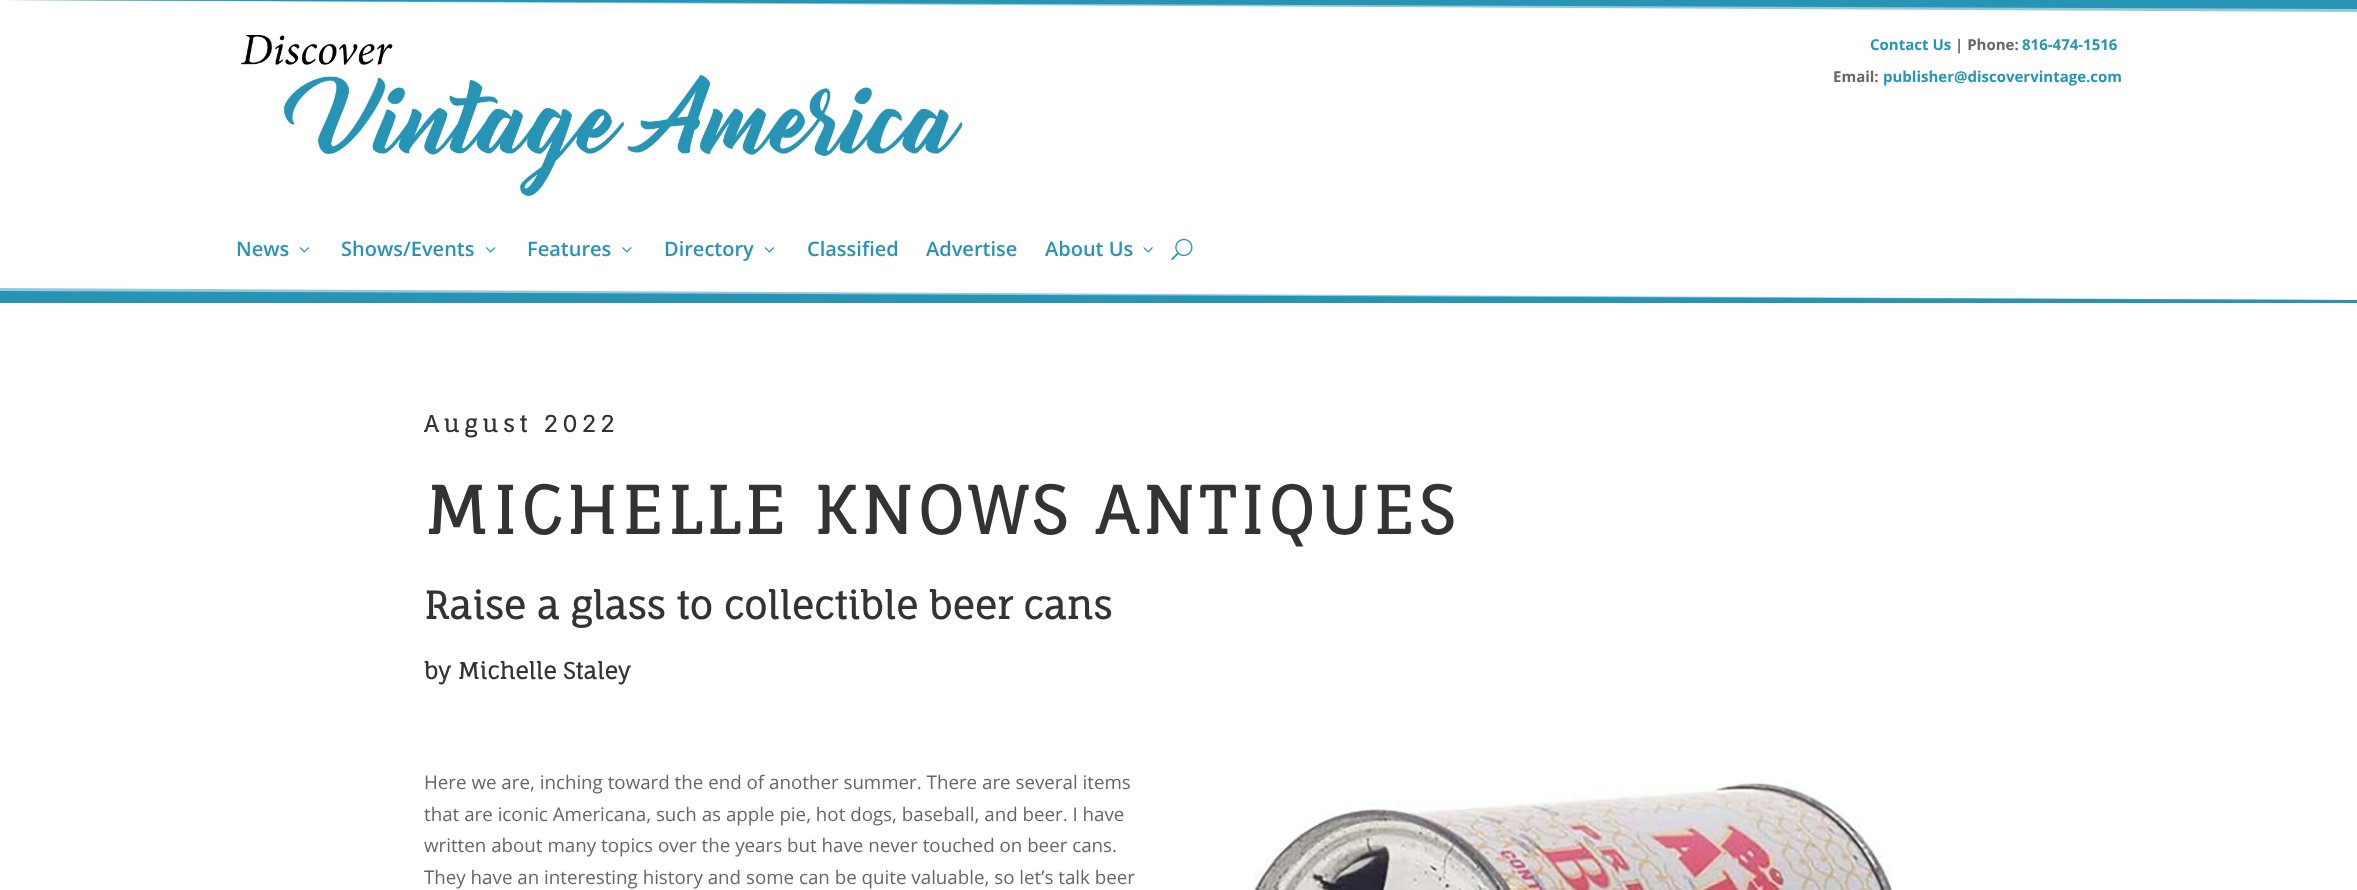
(async () => {
const canvas = document.querySelector("canvas")
canvas.width = 2357
canvas.height = 890
const c = canvas.getContext("2d")
c.miterLimit = 4
c.fontKerning = "normal"
function T(s,x,y){c.fillText(s,x,y)}
function R(x,y,w,h){c.fillRect(x,y,w,h)}
async function I(src,x,y,w,h){const img=new Image();img.src=src;await img.decode();c.drawImage(img,x,y,w,h)}
let path
c.fillStyle="#fff"
R(0,0,2357,890)
c.fillStyle="#2894b5"
R(0,300,2357,3)
c.fillStyle="#94cada"
path = new Path2D("M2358 12v-12h-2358z")
c.fill(path)
c.fillStyle="#2894b5"
path = new Path2D("M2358 9v-9h-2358z")
c.fill(path)
await I("1.png",241,34,722,162)
c.font="bold 15px Open Sans"
T("Contact Us",1870,50)
c.fillStyle="#666"
T("| Phone:",1955,50)
c.fillStyle="#2894b5"
T("816-474-1516",2022,50)
c.fillStyle="#666"
T("Email:",1833,82)
c.fillStyle="#2894b5"
T("publisher@discovervintage.com",1883,82)
c.font="600 20px Open Sans"
T("News",236,256)
await I("2.png",299,247,10,6)
T("Shows/Events",341,256)
await I("3.png",486,247,10,6)
T("Features",527,256)
await I("4.png",622,247,10,6)
T("Directory",664,256)
await I("2.png",764,247,10,6)
T("Classified",807,256)
T("Advertise",926,256)
T("About Us",1045,256)
await I("5.png",1143,247,10,6)
await I("6.png",1171,238,22,23)
c.fillStyle="#94cada"
path = new Path2D("M0 288v12h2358z")
c.fill(path)
c.fillStyle="#2894b5"
path = new Path2D("M0 291v9h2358z")
c.fill(path)
c.letterSpacing="5px"
c.font="bold 22.5px Fauna One"
c.fillStyle="#333"
T("August 2022",424,432)
c.font="bold 65px Fauna One"
T("MICHELLE KNOWS ANTIQUES",424,534)
c.letterSpacing="0px"
c.font="bold 37.5px Fauna One"
T("Raise a glass to collectible beer cans",424,619)
c.font="bold 22.5px Fauna One"
T("by Michelle Staley",424,679)
c.font="18.75px Open Sans"
c.fillStyle="#666"
T("Here we are, inching toward the end of another summer. There are several items",424,789)
T("that are iconic Americana, such as apple pie, hot dogs, baseball, and beer. I have",424,821)
T("written about many topics over the years but have never touched on beer cans.",424,852)
T("They have an interesting history and some can be quite valuable, so let’s talk beer",424,884)
await I("7.png",1254,782,639,108)
})()
